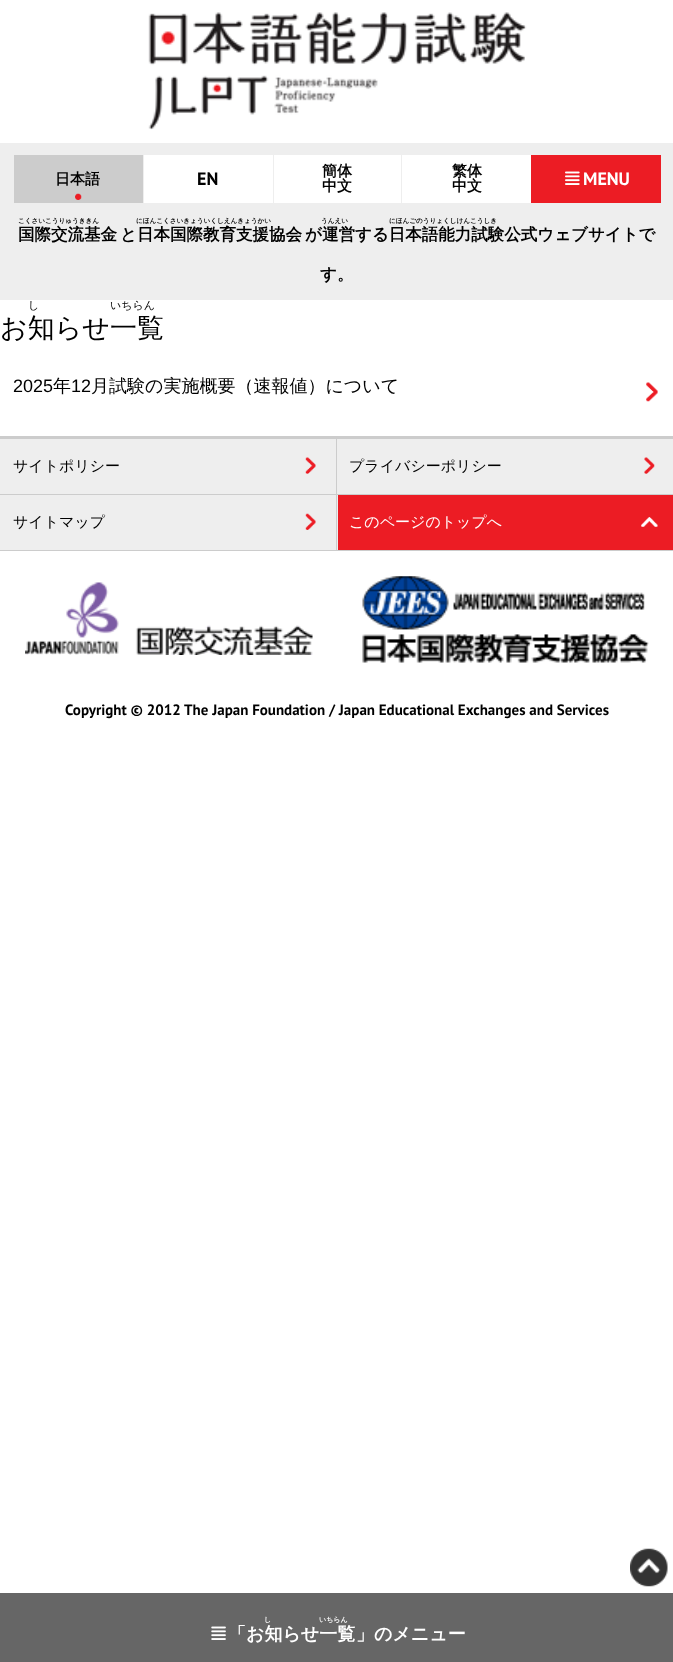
(async () => {
const canvas = document.querySelector("canvas")
canvas.width = 673
canvas.height = 1662
const c = canvas.getContext("2d")
c.miterLimit = 4
c.fontKerning = "normal"
function T(s,x,y){c.fillText(s,x,y)}
function R(x,y,w,h){c.fillRect(x,y,w,h)}
async function I(src,x,y,w,h){const img=new Image();img.src=src;await img.decode();c.drawImage(img,x,y,w,h)}
c.fillStyle="#fff"
R(0,0,673,1662)
await I("1.png",148,12,379,118)
c.fillStyle="#eee"
R(0,143,673,157)
c.fillStyle="#ccc"
R(14,155,129,48)
await I("2.png",75,193,7,7)
c.font="bold 15px WenQuanYi Zen Hei"
c.fillStyle="#000"
T("日本語",55,184)
c.fillStyle="#fff"
R(144,155,129,48)
c.font="bold 18px PT Sans"
c.fillStyle="#000"
T("EN",197,185)
c.fillStyle="#fff"
R(274,155,127,48)
c.font="bold 15px WenQuanYi Zen Hei"
c.fillStyle="#000"
T("簡体",322,176)
T("中文",322,191)
c.fillStyle="#fff"
R(402,155,129,48)
c.fillStyle="#000"
T("繁体",452,176)
T("中文",452,191)
c.fillStyle="#ec1c24"
R(531,155,130,48)
await I("3.png",565,171,15,14)
c.font="bold 18px PT Sans"
c.fillStyle="#fff"
T("MENU",583,185)
c.font="bold 6.6px WenQuanYi Zen Hei"
c.fillStyle="#000"
T("こくさいこうりゅうききん",18,223)
c.font="bold 16.5px WenQuanYi Zen Hei"
T("国際交流基金",18,240)
c.font="bold 6.6px WenQuanYi Zen Hei"
T("にほんこくさいきょういくしえんきょうかい",136,223)
T("うんえい",321,223)
T("にほんごのうりょくしけんこうしき",389,223)
c.font="bold 16.5px WenQuanYi Zen Hei"
T("と日本国際教育支援協会",120,240)
T("が運営",305,240)
T("する日本語能力試験公式ウェブサイトで",355,240)
T("す。",320,280)
c.font="500 11px WenQuanYi Zen Hei"
T("し",28,309)
T("いちらん",110,309)
c.font="500 27px WenQuanYi Zen Hei"
T("一覧",110,337)
T("お知らせ",0,337)
await I("4.png",646,382,12,20)
c.font="18px Liberation Sans"
T("2025",13,392)
c.font="500 18px WenQuanYi Zen Hei"
T("年",53,392)
c.font="18px Liberation Sans"
T("12",71,392)
c.font="500 18px WenQuanYi Zen Hei"
T("月試験の実施概要（速報値）について",91,392)
c.fillStyle="#ccc"
R(0,436,673,3)
c.fillStyle="#eee"
R(0,439,673,55)
c.fillStyle="#ccc"
R(336,439,1,56)
R(0,494,673,1)
await I("5.png",305,457,11,17)
c.font="500 15px WenQuanYi Zen Hei"
c.fillStyle="#000"
T("サイトポリシー",13,471)
await I("6.png",644,457,11,17)
T("プライバシーポリシー",349,471)
c.fillStyle="#eee"
R(0,495,338,55)
c.fillStyle="#ccc"
R(336,495,1,56)
R(0,550,673,1)
await I("7.png",305,513,11,17)
c.fillStyle="#000"
T("サイトマップ",13,527)
c.fillStyle="#ec1c24"
R(338,495,335,55)
await I("8.png",641,517,17,10)
c.fillStyle="#fff"
T("このページのトップへ",349,527)
await I("9.png",25,582,288,73)
await I("10.png",362,576,287,87)
c.font="bold 15px PT Sans"
c.fillStyle="#000"
T("Copyright © 2012 The Japan Foundation / Japan Educational Exchanges and Services",65,715)
await I("11.png",630,1548,38,39)
c.fillStyle="#666"
R(0,1593,673,69)
c.font="bold 7px WenQuanYi Zen Hei"
c.fillStyle="#fff"
T("し",264,1622)
T("いちらん",319,1622)
await I("12.png",211,1626,15,14)
c.font="bold 18px WenQuanYi Zen Hei"
T("「お知らせ一覧",228,1640)
T("」のメニュー",356,1640)
})()
